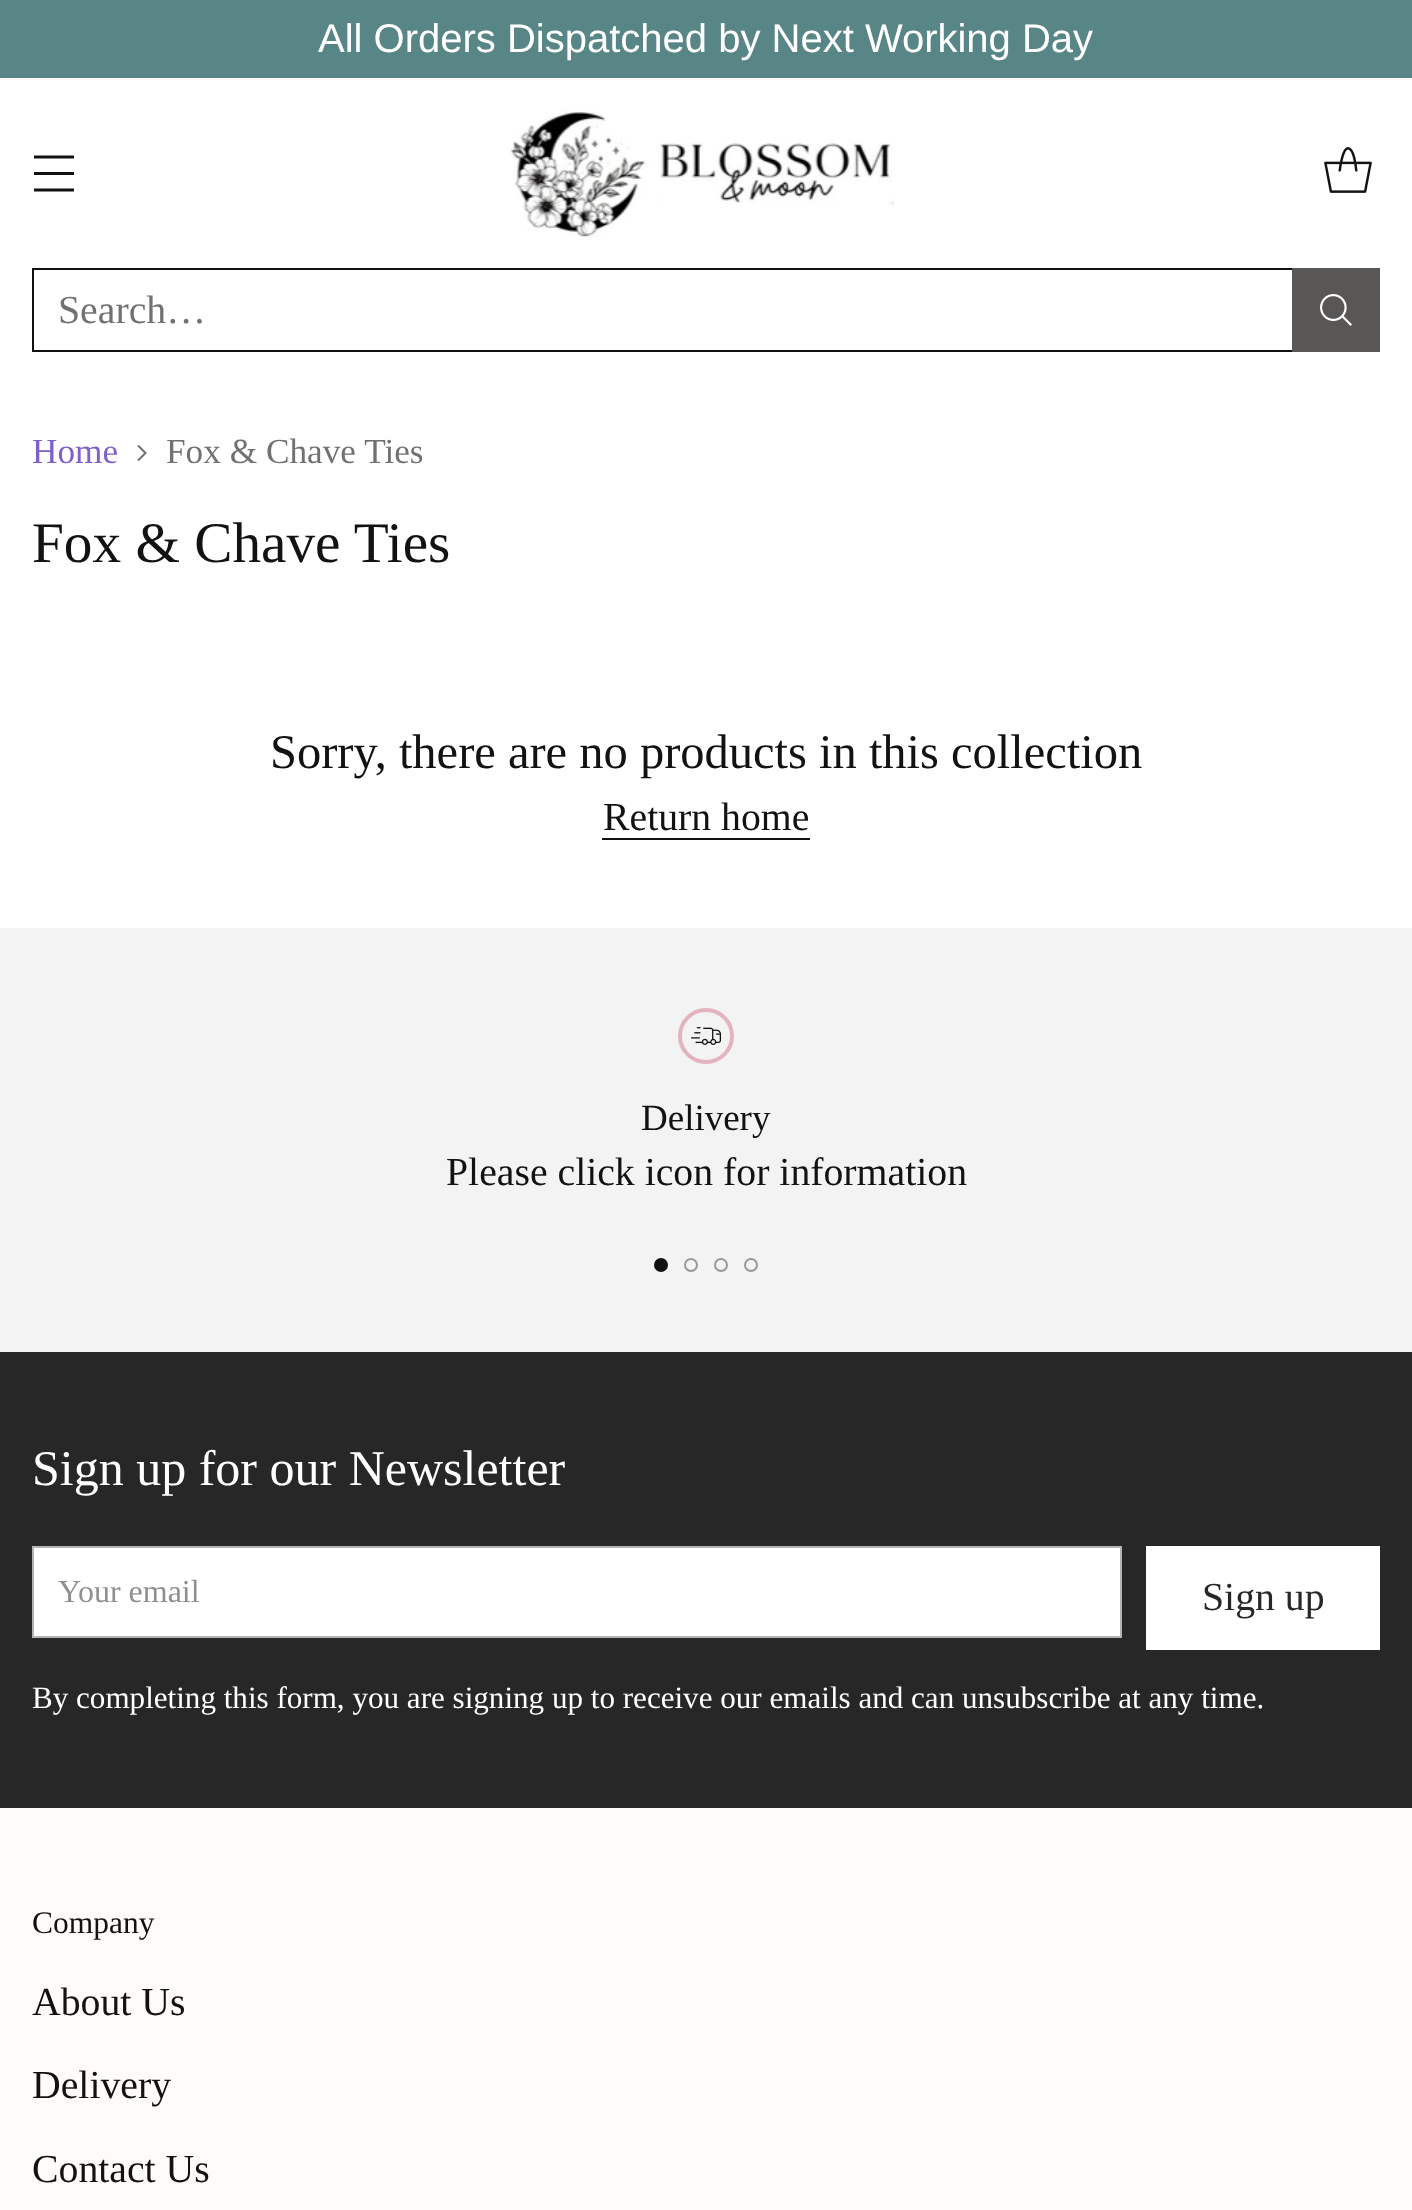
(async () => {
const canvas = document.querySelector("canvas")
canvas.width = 1412
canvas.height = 2210
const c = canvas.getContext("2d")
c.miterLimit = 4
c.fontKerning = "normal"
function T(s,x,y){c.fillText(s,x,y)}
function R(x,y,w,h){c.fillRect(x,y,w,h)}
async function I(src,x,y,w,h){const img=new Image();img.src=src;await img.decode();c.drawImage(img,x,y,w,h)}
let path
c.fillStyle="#fff"
R(0,0,1412,2210)
c.fillStyle="#588687"
R(0,0,1412,78)
c.font="40px Liberation Sans"
c.fillStyle="#fff"
T("All Orders Dispatched by Next Working Day",318,52)
path = new Path2D("M34 173.5h40m-40-16.5h40m-40 33h40")
c.strokeStyle="#121212"
c.lineWidth=2.9
c.stroke(path)
await I("1.png",510,111,384,129)
await I("2.png",1324,147,48,46)
c.lineWidth=2
c.strokeRect(33,269,1346,82)
c.font="39.75px Liberation Serif"
c.fillStyle="#717171"
T("Search…",58,323)
c.fillStyle="#595656"
R(1292,268,88,84)
await I("3.png",1320,294,32,32)
c.font="35.25px Liberation Serif"
c.fillStyle="#7f5fca"
T("Home",32,463)
path = new Path2D("M138 460.5l7.5-7.5l-7.5-7.5")
c.strokeStyle="#717171"
c.lineWidth=2.1
c.stroke(path)
c.fillStyle="#717171"
T("Fox & Chave Ties",166,463)
c.font="57.25px Liberation Serif"
c.fillStyle="#121212"
T("Fox & Chave Ties",32,562)
c.font="48.5px Liberation Serif"
T("Sorry, there are no products in this collection",270,768)
c.font="39.75px Liberation Serif"
T("Return home",603,830)
R(602,838,208,2)
c.fillStyle="#f3f3f3"
R(0,928,1412,424)
c.beginPath()
c.arc(706,1036,26,0,7)
c.strokeStyle="#e2b5be"
c.lineWidth=4
c.stroke()
await I("4.png",691,1027,31,18)
c.font="37px Liberation Serif"
c.fillStyle="#121212"
T("Delivery",641,1130)
c.font="39.75px Liberation Serif"
T("Please click icon for information",446,1185)
c.beginPath()
c.arc(661,1265,6,0,7)
c.fill()
c.strokeStyle="#121212"
c.lineWidth=2
c.stroke()
c.beginPath()
c.arc(691,1265,6,0,7)
c.strokeStyle="#999"
c.stroke()
c.beginPath()
c.arc(721,1265,6,0,7)
c.stroke()
c.beginPath()
c.arc(751,1265,6,0,7)
c.stroke()
c.fillStyle="#272727"
R(0,1352,1412,456)
c.font="50px Liberation Serif"
c.fillStyle="#fff"
T("Sign up for our Newsletter",32,1485)
c.beginPath()
c.rect(33,1547,1088,90)
c.fill()
c.strokeStyle="#b4b4b4"
c.stroke()
c.font="32px Liberation Serif"
c.fillStyle="#8f8f8f"
T("Your email",58,1602)
c.fillStyle="#fff"
R(1146,1546,234,104)
c.font="39.75px Liberation Serif"
c.fillStyle="#272727"
T("Sign up",1202,1610)
c.font="31.1px Liberation Serif"
c.fillStyle="#fff"
T("By completing this form, you are signing up to receive our emails and can unsubscribe at any time.",32,1708)
c.fillStyle="#fffbf9"
R(0,1808,1412,402)
c.font="31.5px Liberation Serif"
c.fillStyle="#121212"
T("Company",32,1933)
c.font="39.75px Liberation Serif"
T("About Us",32,2015)
T("Delivery",32,2098)
T("Contact Us",32,2182)
})()
